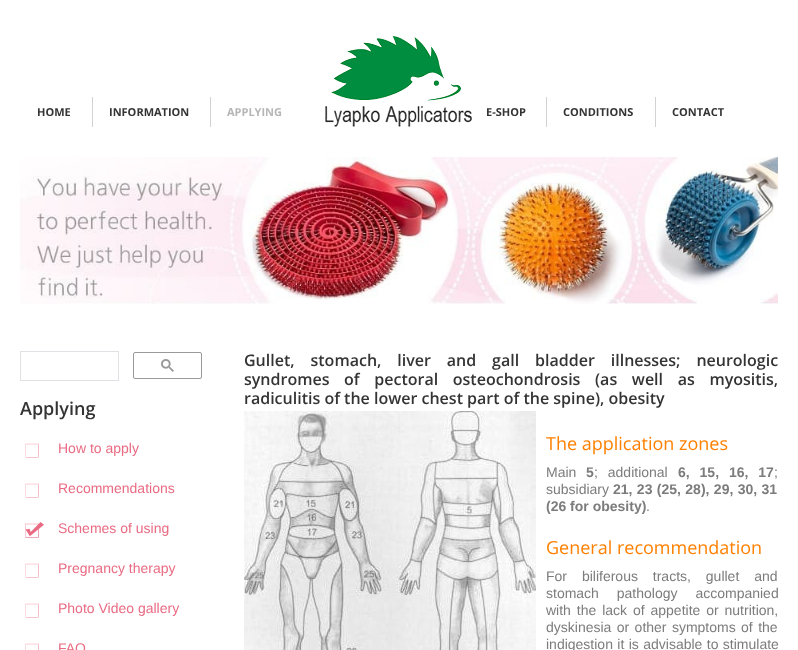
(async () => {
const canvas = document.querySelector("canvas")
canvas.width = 798
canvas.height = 650
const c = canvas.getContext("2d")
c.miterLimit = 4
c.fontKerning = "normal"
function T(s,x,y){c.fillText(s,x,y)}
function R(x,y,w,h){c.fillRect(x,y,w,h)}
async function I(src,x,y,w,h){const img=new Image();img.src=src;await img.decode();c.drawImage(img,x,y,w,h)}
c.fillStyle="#fff"
R(0,0,798,650)
await I("1.png",324,36,148,91)
c.font="bold 11px Open Sans"
c.fillStyle="#343434"
T("HOME",37,116)
c.fillStyle="#d3d3d3"
R(92,97,1,30)
c.fillStyle="#343434"
T("INFORMATION",109,116)
c.fillStyle="#d3d3d3"
R(210,97,1,30)
c.fillStyle="#b6b6b6"
T("APPLYING",227,116)
c.fillStyle="#343434"
T("E-SHOP",486,116)
c.fillStyle="#d3d3d3"
R(546,97,1,30)
c.fillStyle="#343434"
T("CONDITIONS",563,116)
c.fillStyle="#d3d3d3"
R(655,97,1,30)
c.fillStyle="#343434"
T("CONTACT",672,116)
await I("2.png",20,157,758,147)
c.strokeStyle="#dfe1e5"
c.strokeRect(20.5,351.5,98,29)
c.beginPath()
c.roundRect(133.5,352.5,68,26,1.5)
c.strokeStyle="#999"
c.stroke()
await I("3.png",161,359,13,13)
c.font="600 18px Open Sans"
T("Applying",20,415)
await I("4.png",25,443,14,15)
c.font="14px Liberation Sans"
c.fillStyle="#e96b83"
T("How to apply",58,453)
await I("4.png",25,483,14,15)
T("Recommendations",58,493)
await I("5.png",25,522,19,16)
T("Schemes of using",58,533)
await I("4.png",25,563,14,15)
T("Pregnancy therapy",58,573)
await I("4.png",25,603,14,15)
T("Photo Video gallery",58,613)
await I("6.png",25,643,14,7)
T("FAQ",58,653)
c.wordSpacing="11.75px"
c.font="600 16px Open Sans"
c.fillStyle="#343434"
T("Gullet, stomach, liver and gall bladder illnesses; neurologic",244,366)
c.wordSpacing="10.5px"
T("syndromes of pectoral osteochondrosis (as well as myositis,",244,385)
c.wordSpacing="0px"
T("radiculitis of the lower chest part of the spine), obesity",244,404)
await I("7.png",244,411,292,239)
c.font="18px Open Sans"
c.fillStyle="#ff8000"
T("The application zones",546,450)
c.font="14px Liberation Sans"
c.fillStyle="#7c7c7c"
T("Main",546,477)
c.font="bold 14px Liberation Sans"
T("5",586,477)
c.wordSpacing="6px"
c.font="14px Liberation Sans"
T("; additional",594,477)
c.font="bold 14px Liberation Sans"
T("6, 15, 16, 17",678,477)
c.wordSpacing="0px"
c.font="14px Liberation Sans"
T(";",774,477)
T("subsidiary",546,494)
c.wordSpacing="0.5px"
c.font="bold 14px Liberation Sans"
T("21, 23 (25, 28), 29, 30, 31",613,494)
c.wordSpacing="0px"
T("(26 for obesity)",546,511)
c.font="14px Liberation Sans"
T(".",646,511)
c.font="18px Open Sans"
c.fillStyle="#ff8000"
T("General recommendation",546,554)
c.wordSpacing="11px"
c.font="14px Liberation Sans"
c.fillStyle="#7c7c7c"
T("For biliferous tracts, gullet and",546,581)
c.wordSpacing="14px"
T("stomach pathology accompanied",546,598)
c.wordSpacing="2px"
T("with the lack of appetite or nutrition,",546,615)
c.wordSpacing="1.5px"
T("dyskinesia or other symptoms of the",546,632)
c.wordSpacing="0.5px"
T("indigestion it is advisable to stimulate",546,649)
})()
